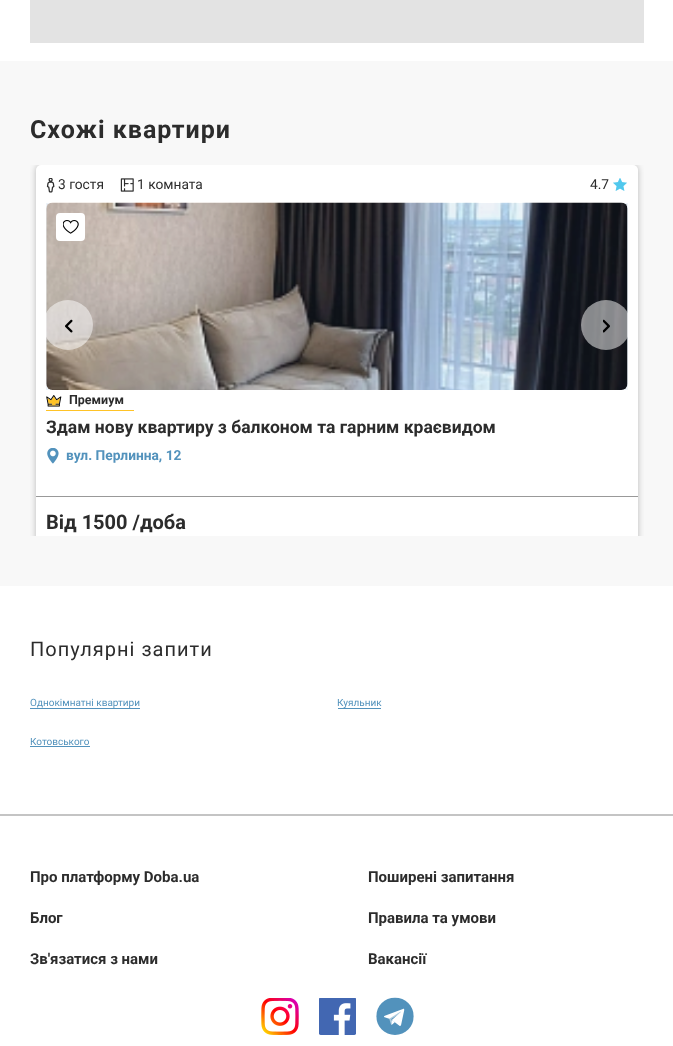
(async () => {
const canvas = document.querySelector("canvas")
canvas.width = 673
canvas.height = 1046
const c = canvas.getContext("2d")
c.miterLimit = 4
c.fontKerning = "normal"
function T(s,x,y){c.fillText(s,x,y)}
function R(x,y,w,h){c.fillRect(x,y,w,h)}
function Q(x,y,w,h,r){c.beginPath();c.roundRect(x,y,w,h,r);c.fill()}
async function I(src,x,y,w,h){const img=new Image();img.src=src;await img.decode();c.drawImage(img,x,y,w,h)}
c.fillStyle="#fff"
R(0,0,673,1046)
c.fillStyle="#e3e3e3"
R(30,0,614,43)
c.fillStyle="#f8f8f8"
R(0,61,673,525)
c.letterSpacing="1px"
c.font="bold 25px Roboto"
c.fillStyle="#2c2c2c"
T("Схожі квартири",30,138)
c.save()
c.beginPath()
c.rect(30,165,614,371)
c.clip()
c.fillStyle="#00000040"
c.filter="blur(3px)"
c.beginPath()
c.roundRect(36,165,602,384,5)
c.fill()
c.filter="none"
c.restore()
c.fillStyle="#fff"
c.beginPath()
c.roundRect(36,165,602,371,[5,5,0,0])
c.fill()
c.fillStyle="#eef3f8"
R(46,203,582,187)
await I("1.png",46,178,9,15)
c.letterSpacing="0px"
c.font="13.75px Roboto"
c.fillStyle="#2c2c2c"
T("3 гостя",58,189)
await I("2.png",120,178,14,14)
T("1 комната",137,189)
T("4.7",590,189)
await I("3.png",613,178,14,13)
await I("4.png",46,202,582,188)
c.fillStyle="#fff"
Q(56,213,29,28,4)
await I("5.png",63,220,16,14)
await I("6.png",46,395,16,12)
c.font="bold 12.5px Roboto"
c.fillStyle="#2c2c2c"
T("Премиум",69,404)
c.fillStyle="#ffc327"
R(46,410,88,1)
c.font="bold 17.5px Roboto"
c.fillStyle="#2c2c2c"
T("Здам нову квартиру з балконом та гарним краєвидом",46,433)
await I("7.png",47,448,12,16)
c.font="bold 13.75px Roboto"
c.fillStyle="#5292bc"
T("вул. Перлинна, 12",66,460)
c.fillStyle="#999"
R(36,496,602,1)
c.font="bold 20px Roboto"
c.fillStyle="#2c2c2c"
T("Від 1500 /доба",46,529)
c.fillStyle="#ffffff80"
c.beginPath()
c.arc(68,325,25,0,7)
c.fill()
await I("8.png",65,319,8,14)
c.beginPath()
c.arc(606,325,25,0,7)
c.fill()
await I("9.png",603,319,7,14)
c.letterSpacing="1px"
c.font="20px Roboto"
c.fillStyle="#2c2c2c"
T("Популярні запити",30,656)
c.letterSpacing="0px"
c.font="10px Roboto"
c.fillStyle="#5292bc"
T("Однокімнатні квартири",30,706)
R(30,708,110,1)
R(338,708,43,1)
T("Куяльник",337,706)
T("Котовського",30,745)
R(30,746,60,1)
c.fillStyle="#c4c4c4"
R(0,814,673,2)
c.font="bold 15px Roboto"
c.fillStyle="#2c2c2c"
T("Про платформу Doba.ua",30,882)
T("Поширені запитання",368,882)
T("Блог",30,923)
T("Правила та умови",368,923)
T("Зв'язатися з нами",30,964)
T("Вакансії",368,964)
await I("10.png",261,998,38,37)
await I("11.png",319,998,37,37)
await I("12.png",376,997,38,38)
})()
